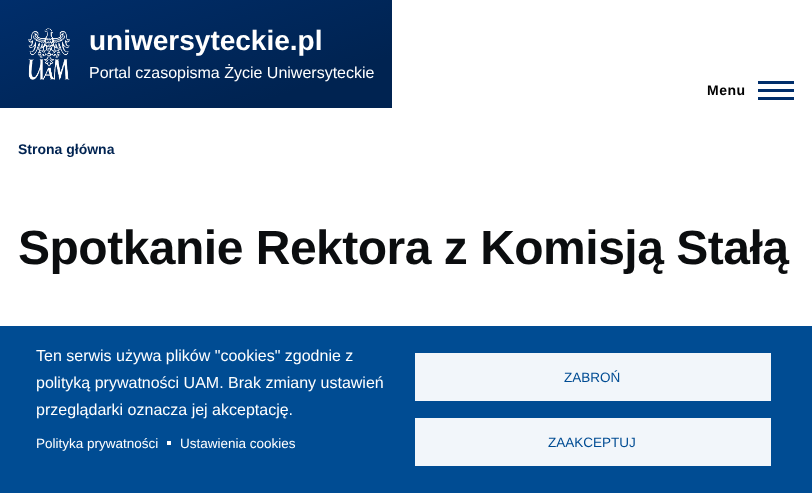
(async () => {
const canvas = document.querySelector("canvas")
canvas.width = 812
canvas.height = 493
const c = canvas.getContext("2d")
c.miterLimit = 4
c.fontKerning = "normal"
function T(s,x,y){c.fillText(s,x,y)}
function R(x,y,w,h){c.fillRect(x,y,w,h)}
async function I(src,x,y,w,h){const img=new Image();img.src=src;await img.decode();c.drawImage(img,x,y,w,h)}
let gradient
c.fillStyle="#fff"
R(0,0,812,493)
gradient = c.createLinearGradient(156,-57,236,165)
gradient.addColorStop(0,"#002e6b")
gradient.addColorStop(.79,"#002351")
c.fillStyle = gradient
R(0,0,392,108)
await I("1.png",28,28,42,52)
c.font="bold 28px Liberation Sans"
c.fillStyle="#fff"
T("uniwersyteckie.pl",89,50)
c.font="16px Liberation Sans"
T("Portal czasopisma Życie Uniwersyteckie",89,78)
c.letterSpacing="0.5px"
c.font="bold 14px Liberation Sans"
c.fillStyle="#000"
T("Menu",707,95)
c.fillStyle="#002e6b"
R(758,89,36,3)
R(758,81,36,3)
R(758,97,36,3)
c.letterSpacing="0px"
c.fillStyle="#002351"
T("Strona główna",18,154)
c.letterSpacing="-0.5px"
c.font="bold 48px Liberation Sans"
c.fillStyle="#0b0d0f"
T("Spotkanie Rektora z Komisją Stałą",18,264)
c.fillStyle="#004c93"
R(0,326,812,167)
c.letterSpacing="0px"
c.font="16px Liberation Sans"
c.fillStyle="#fff"
T("Ten serwis używa plików \"cookies\" zgodnie z",36,361)
T("polityką prywatności UAM. Brak zmiany ustawień",36,388)
T("przeglądarki oznacza jej akceptację.",36,415)
c.font="13.5px Liberation Sans"
T("Polityka prywatności",36,448)
R(167,441,4,4)
T("Ustawienia cookies",180,448)
c.fillStyle="#f2f6fa"
R(415,353,356,48)
c.fillStyle="#004c93"
T("ZABROŃ",564,382)
c.fillStyle="#f2f6fa"
R(415,418,356,48)
c.fillStyle="#004c93"
T("ZAAKCEPTUJ",548,447)
})()
